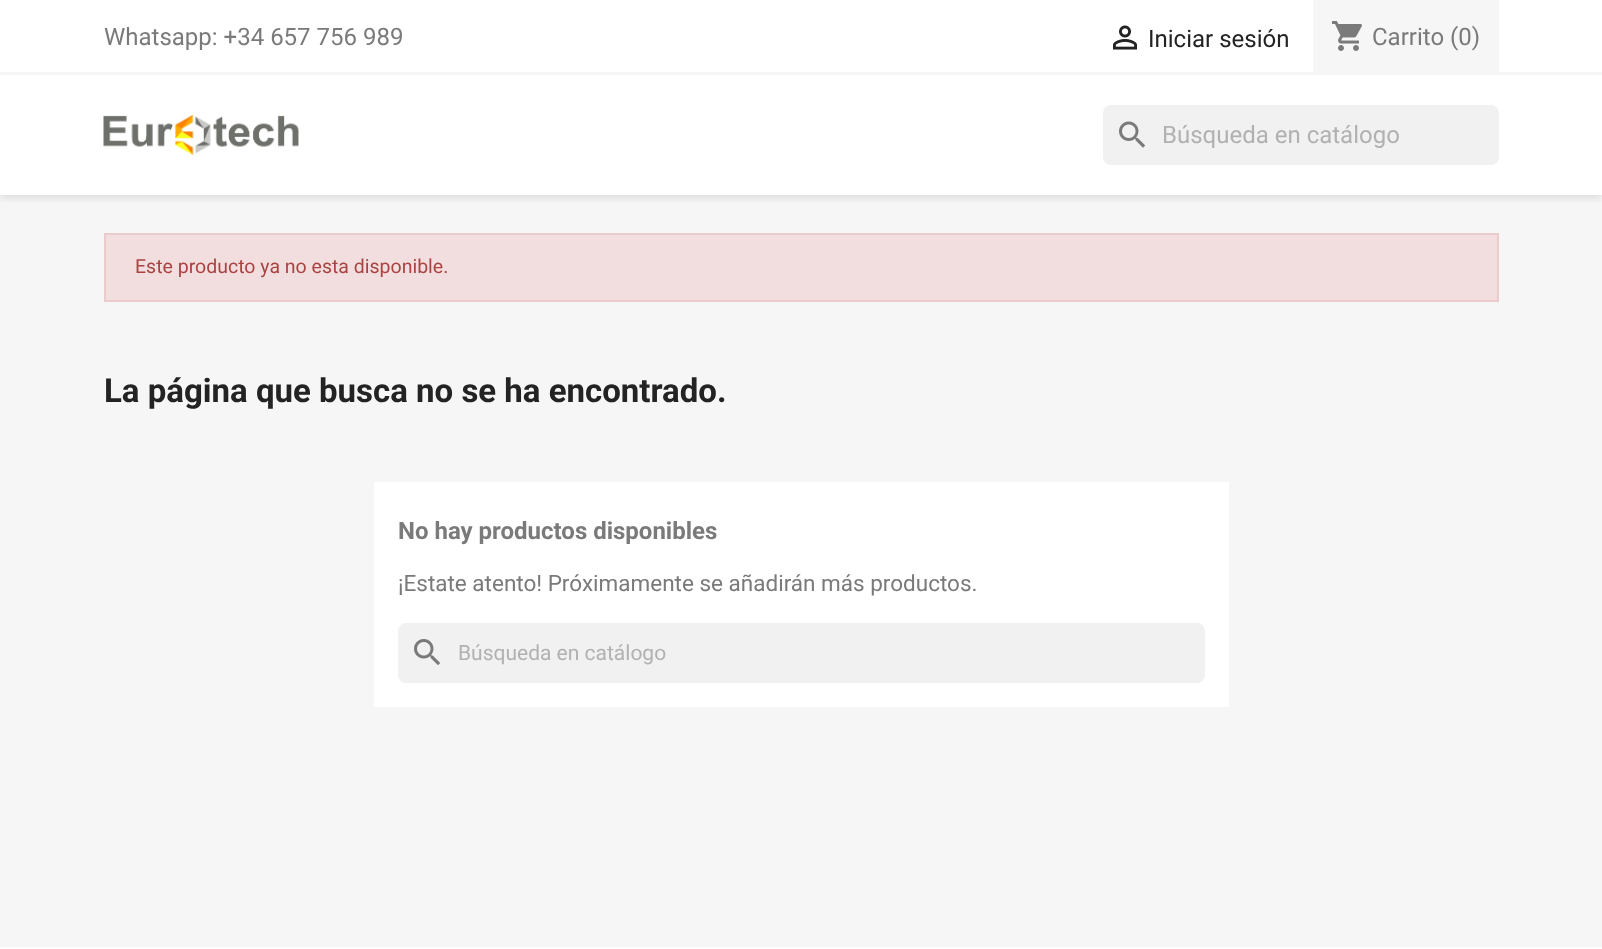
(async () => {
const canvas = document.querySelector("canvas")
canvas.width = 1602
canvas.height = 949
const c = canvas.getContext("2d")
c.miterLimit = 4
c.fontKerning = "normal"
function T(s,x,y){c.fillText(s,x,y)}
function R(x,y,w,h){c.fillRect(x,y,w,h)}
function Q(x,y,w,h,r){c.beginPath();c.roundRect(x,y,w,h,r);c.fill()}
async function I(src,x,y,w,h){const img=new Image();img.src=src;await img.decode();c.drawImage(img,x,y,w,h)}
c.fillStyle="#fff"
R(0,0,1602,949)
c.fillStyle="#f6f6f6"
R(0,195,1602,752)
c.save()
c.beginPath()
c.rect(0,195,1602,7)
c.clip()
c.fillStyle="#0000001c"
c.filter="blur(4px)"
c.beginPath()
c.rect(0,3,1602,195)
c.fill()
c.filter="none"
c.restore()
R(0,72,1602,3)
c.font="24px Roboto"
c.fillStyle="#7a7a7a"
T("Whatsapp: +34 657 756 989",104,45)
await I("1.png",1112,25,26,25)
c.fillStyle="#232323"
T("Iniciar sesión",1148,47)
c.fillStyle="#f6f6f6"
R(1313,0,186,72)
await I("2.png",1332,21,30,30)
c.fillStyle="#7a7a7a"
T("Carrito (0)",1372,45)
await I("3.png",103,114,196,42)
c.fillStyle="#f1f1f1"
Q(1103,105,396,60,8)
await I("4.png",1119,121,27,27)
c.fillStyle="#b1b1b1"
T("Búsqueda en catálogo",1162,143)
c.fillStyle="#f2dede"
c.beginPath()
c.rect(105,234,1393,67)
c.fill()
c.strokeStyle="#ebcccc"
c.lineWidth=2
c.stroke()
c.font="19.5px Roboto"
c.fillStyle="#a94442"
T("Este producto ya no esta disponible.",135,273)
c.font="bold 33px Roboto"
c.fillStyle="#232323"
T("La página que busca no se ha encontrado.",104,402)
c.fillStyle="#fff"
R(374,482,855,225)
c.font="bold 24px Roboto"
c.fillStyle="#7a7a7a"
T("No hay productos disponibles",398,539)
c.font="22.5px Roboto"
T("¡Estate atento! Próximamente se añadirán más productos.",398,591)
c.fillStyle="#f1f1f1"
Q(398,623,807,60,8)
await I("5.png",414,639,27,26)
c.font="21px Roboto"
c.fillStyle="#b1b1b1"
T("Búsqueda en catálogo",458,660)
})()
